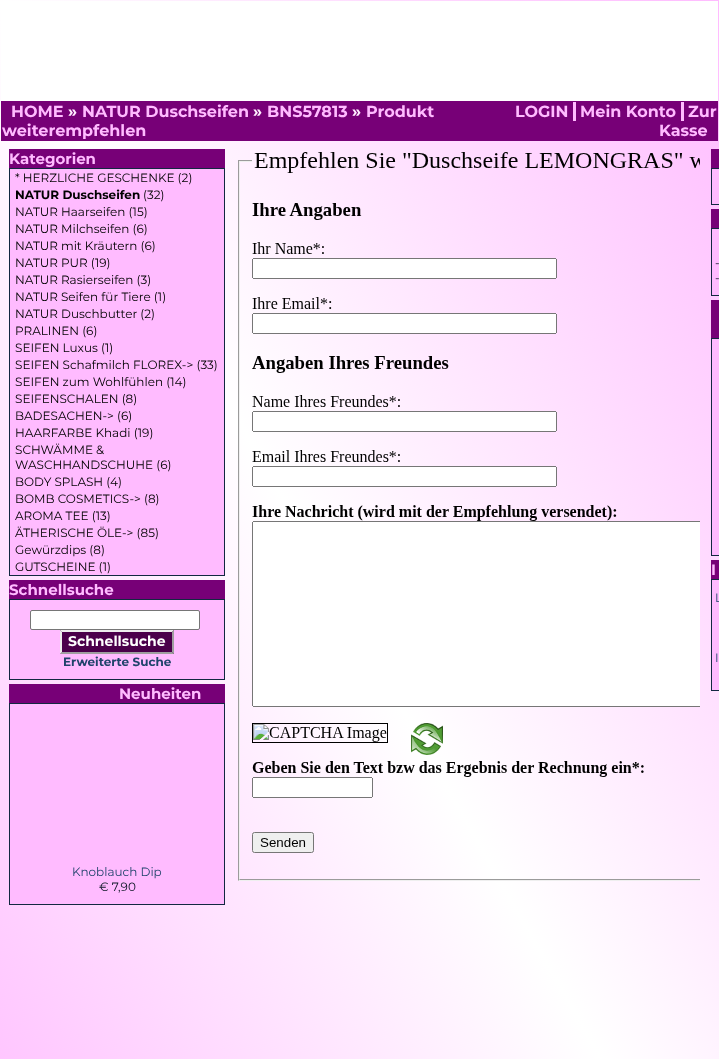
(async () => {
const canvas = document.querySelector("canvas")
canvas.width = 719
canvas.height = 1059
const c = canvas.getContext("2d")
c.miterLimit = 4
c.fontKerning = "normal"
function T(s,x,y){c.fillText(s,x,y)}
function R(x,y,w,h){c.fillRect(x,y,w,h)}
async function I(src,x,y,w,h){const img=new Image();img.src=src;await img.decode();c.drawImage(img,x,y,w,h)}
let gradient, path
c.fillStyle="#fff"
R(0,0,719,1059)
gradient = c.createLinearGradient(-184,942,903,325)
gradient.addColorStop(0,"#fbf")
gradient.addColorStop(.5,"#fff")
gradient.addColorStop(1,"#fbf")
c.fillStyle = gradient
R(0,0,719,1059)
c.fillStyle="#fff"
R(1,1,717,100)
c.fillStyle="#707"
R(1,101,717,40)
c.font="bold 16px Montserrat"
c.fillStyle="#fbf"
T("HOME",11,117)
c.fillStyle="#fef"
T("»",68,117)
c.fillStyle="#fbf"
T("NATUR Duschseifen",82,117)
c.fillStyle="#fef"
T("»",253,117)
c.fillStyle="#fbf"
T("BNS57813",267,117)
c.fillStyle="#fef"
T("»",352,117)
c.fillStyle="#fbf"
T("Produkt",366,117)
T("weiterempfehlen",2,136)
T("LOGIN",515,117)
R(573,102,3,19)
T("Mein Konto",580,117)
R(681,102,3,19)
T("Zur",688,117)
T("Kasse",659,136)
c.fillStyle="#707"
R(9,149,216,19)
c.font="bold 15px Montserrat"
c.fillStyle="#fbf"
T("Kategorien",9,164)
c.fillStyle="#122841"
R(9,168,216,408)
c.fillStyle="#fbf"
R(10,169,214,406)
c.font="12px Montserrat"
c.fillStyle="#000"
T("* HERZLICHE GESCHENKE (2)",15,182)
c.font="bold 12px Montserrat"
T("NATUR Duschseifen",15,199)
c.font="12px Montserrat"
T("(32)",143,199)
T("NATUR Haarseifen (15)",15,216)
T("NATUR Milchseifen (6)",15,233)
T("NATUR mit Kräutern (6)",15,250)
T("NATUR PUR (19)",15,267)
T("NATUR Rasierseifen (3)",15,284)
T("NATUR Seifen für Tiere (1)",15,301)
T("NATUR Duschbutter (2)",15,318)
T("PRALINEN (6)",15,335)
T("SEIFEN Luxus (1)",15,352)
T("SEIFEN Schafmilch FLOREX-> (33)",15,369)
T("SEIFEN zum Wohlfühlen (14)",15,386)
T("SEIFENSCHALEN (8)",15,403)
T("BADESACHEN-> (6)",15,420)
T("HAARFARBE Khadi (19)",15,437)
T("SCHWÄMME &",15,454)
T("WASCHHANDSCHUHE (6)",15,469)
T("BODY SPLASH (4)",15,486)
T("BOMB COSMETICS-> (8)",15,503)
T("AROMA TEE (13)",15,520)
T("ÄTHERISCHE ÖLE-> (85)",15,537)
T("Gewürzdips (8)",15,554)
T("GUTSCHEINE (1)",15,571)
c.fillStyle="#707"
R(9,580,216,19)
c.font="bold 15px Montserrat"
c.fillStyle="#fbf"
T("Schnellsuche",9,595)
c.fillStyle="#122841"
R(9,599,216,81)
c.fillStyle="#fbf"
R(10,600,214,79)
c.fillStyle="#fff"
c.beginPath()
c.roundRect(30.5,610.5,169,19,1.5)
c.fill()
c.strokeStyle="#767676"
c.stroke()
c.fillStyle="#4b004b"
R(60,630,114,24)
c.fillStyle="#eee"
path = new Path2D("M60 630h114l-2 2h-110z")
c.fill(path)
c.fillStyle="#9f9f9f"
path = new Path2D("M174 630v24l-2-2v-20z")
c.fill(path)
path = new Path2D("M174 654h-114l2-2h110z")
c.fill(path)
c.fillStyle="#eee"
path = new Path2D("M60 654v-24l2 2v20z")
c.fill(path)
c.font="bold 14px Montserrat"
c.fillStyle="#fff"
T("Schnellsuche",68,646)
c.font="bold 12px Montserrat"
c.fillStyle="#1f436b"
T("Erweiterte Suche",63,666)
c.fillStyle="#707"
R(9,684,216,19)
c.font="bold 15px Montserrat"
c.fillStyle="#fbf"
T("Neuheiten",119,699)
c.fillStyle="#122841"
R(9,703,216,202)
c.fillStyle="#fbf"
R(10,704,214,200)
c.font="12px Montserrat"
c.fillStyle="#1f436b"
T("Knoblauch Dip",72,876)
c.fillStyle="#0a1523"
T("€ 7,90",99,891)
await I("1.png",238,152,462,729)
c.fillStyle="#707"
R(711,149,8,19)
c.fillStyle="#122841"
R(711,168,8,37)
c.fillStyle="#fbf"
R(712,169,7,35)
c.fillStyle="#707"
R(711,209,8,19)
c.fillStyle="#122841"
R(711,228,8,68)
c.fillStyle="#fbf"
R(712,229,7,66)
c.fillStyle="#0a1523"
T("-",715,267)
T("-",715,282)
c.fillStyle="#707"
R(711,300,8,38)
c.fillStyle="#122841"
R(711,338,8,218)
c.fillStyle="#fbf"
R(712,339,7,216)
c.fillStyle="#707"
R(711,560,8,19)
c.font="bold 15px Montserrat"
c.fillStyle="#fbf"
T("I",711,575)
c.fillStyle="#122841"
R(711,579,8,112)
c.fillStyle="#fbf"
R(712,580,7,110)
c.font="12px Montserrat"
c.fillStyle="#1f436b"
T("L",715,602)
T("I",715,662)
})()
